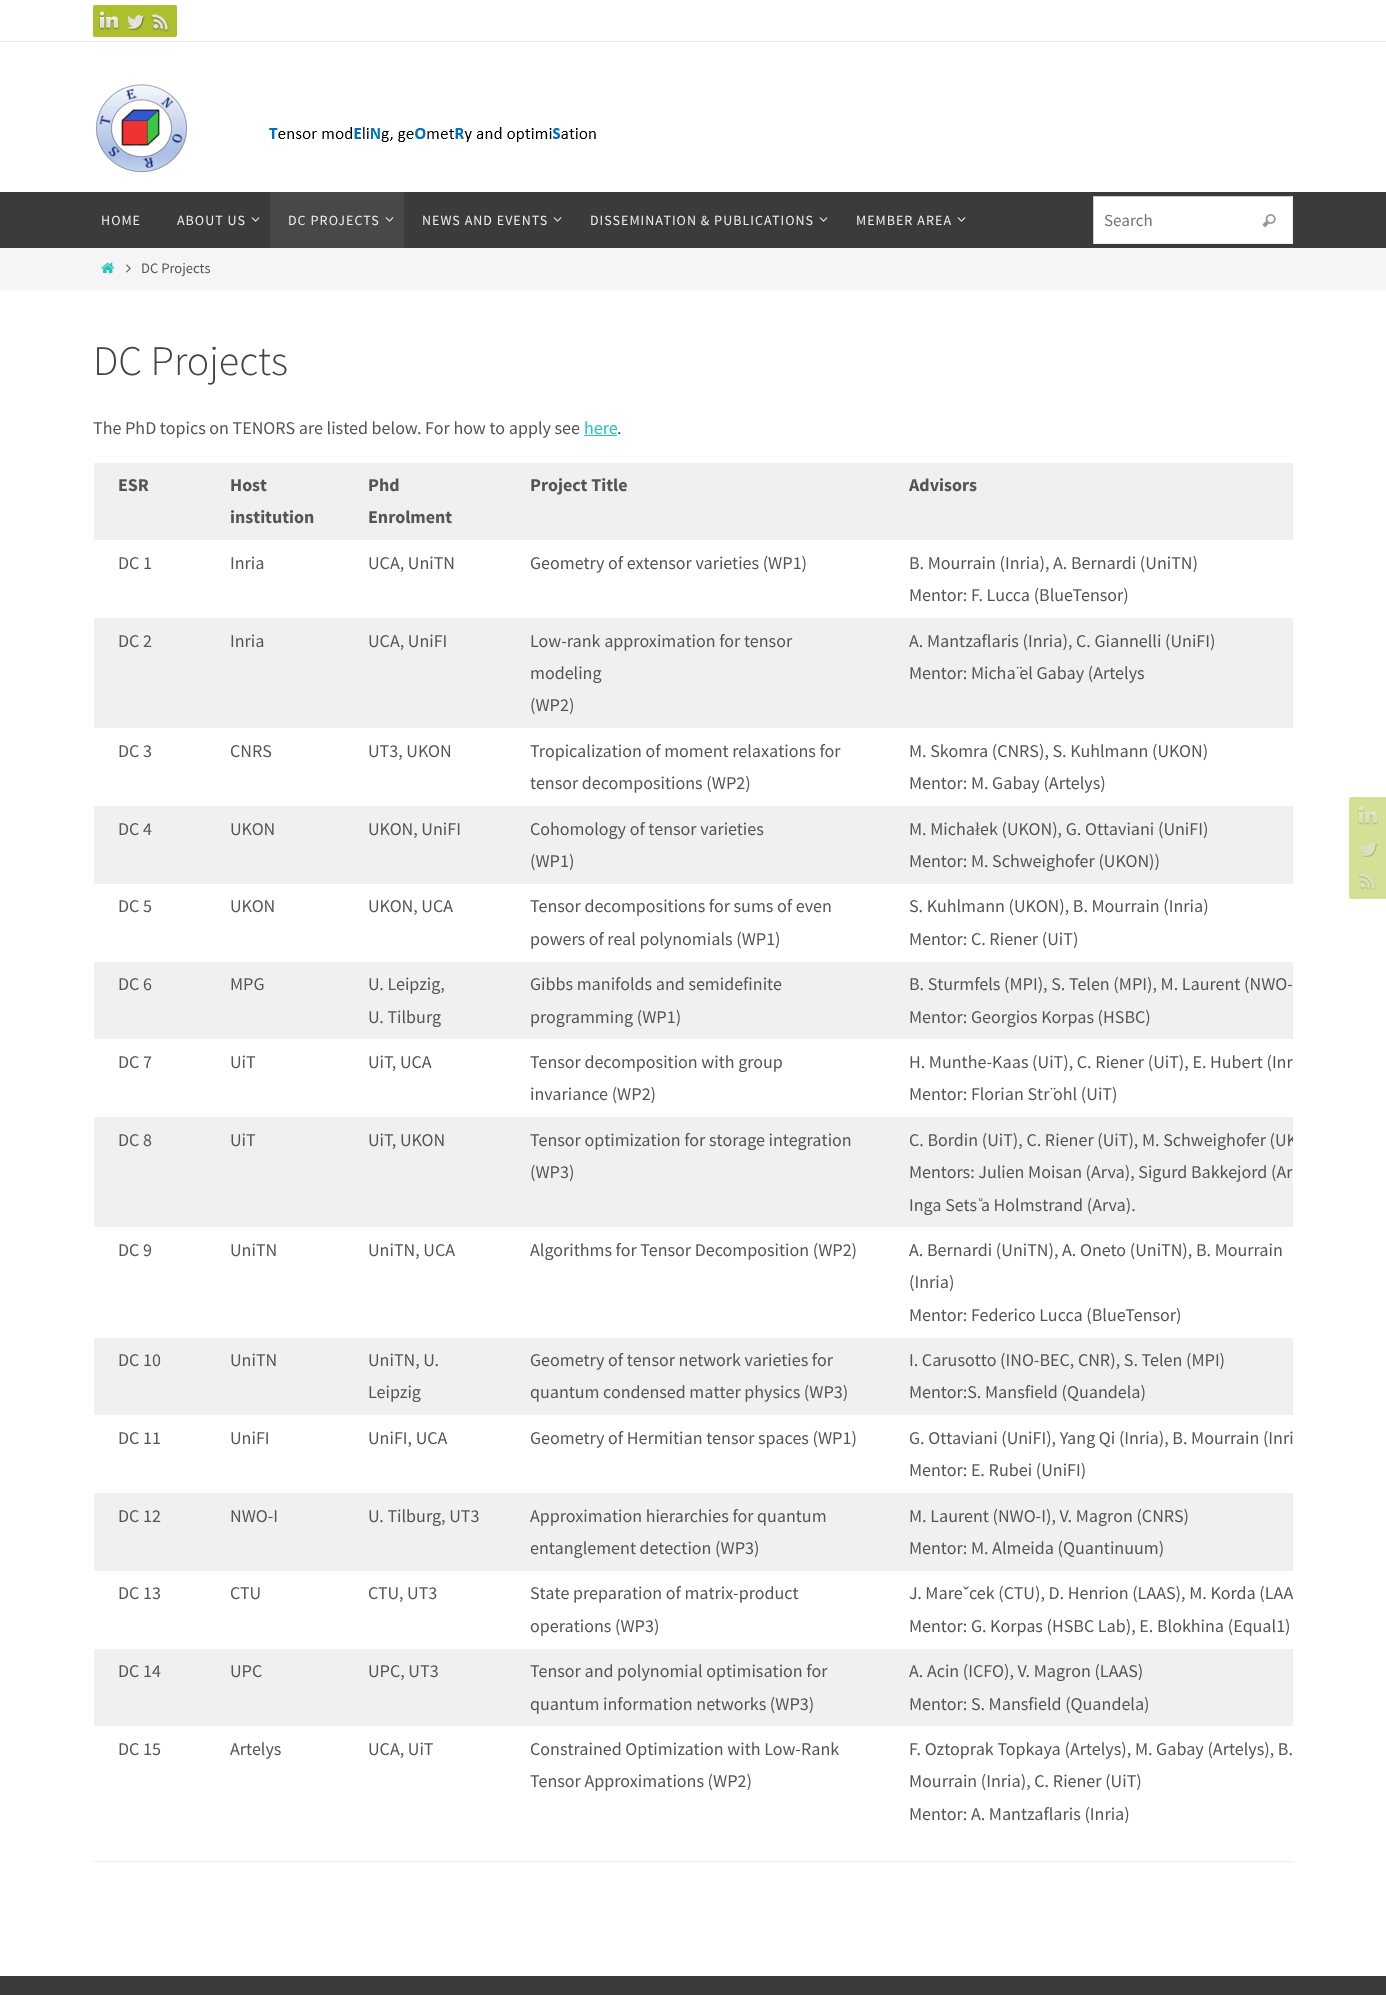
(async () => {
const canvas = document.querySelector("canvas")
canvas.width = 1386
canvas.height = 1995
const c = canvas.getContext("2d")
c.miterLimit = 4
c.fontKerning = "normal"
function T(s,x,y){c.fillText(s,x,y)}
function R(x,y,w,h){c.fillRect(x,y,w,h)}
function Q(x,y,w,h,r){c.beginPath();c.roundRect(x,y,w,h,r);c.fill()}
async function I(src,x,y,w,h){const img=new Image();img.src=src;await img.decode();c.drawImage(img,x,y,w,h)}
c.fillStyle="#fff"
R(0,0,1386,1995)
c.fillStyle="#ebebeb"
R(0,41,1386,1)
c.fillStyle="#adbf2d"
Q(93,5,32,32,2)
await I("1.png",99,11,20,19)
Q(119,5,32,32,2)
await I("2.png",127,15,18,15)
Q(145,5,32,32,2)
await I("3.png",151,14,18,18)
await I("4.png",95,84,93,89)
await I("5.png",269,127,327,15)
c.fillStyle="#3a3b3d"
R(0,192,1386,56)
c.letterSpacing="1px"
c.font="14px Source Sans Pro"
c.fillStyle="#eee"
T("HOME",101,225)
T("ABOUT US",177,225)
await I("6.png",251,217,9,5)
c.fillStyle="#47484a"
R(270,192,134,56)
c.fillStyle="#eee"
T("DC PROJECTS",288,225)
await I("7.png",385,217,9,5)
T("NEWS AND EVENTS",422,225)
await I("6.png",553,217,9,5)
T("DISSEMINATION & PUBLICATIONS",590,225)
await I("6.png",819,217,9,5)
T("MEMBER AREA",856,225)
await I("6.png",957,217,9,5)
c.fillStyle="#fff"
R(1094,197,198,46)
c.fillStyle="#ccc"
R(1093,196,200,1)
c.fillStyle="#eee"
R(1292,196,1,48)
R(1093,243,200,1)
c.fillStyle="#ccc"
R(1093,196,1,48)
c.letterSpacing="0px"
c.font="17px Source Sans Pro"
c.fillStyle="#757575"
T("Search",1104,226)
await I("8.png",1262,214,14,14)
c.fillStyle="#f5f5f5"
R(0,248,1386,42)
await I("9.png",101,262,14,12)
await I("10.png",126,264,5,9)
c.font="14.5px Source Sans Pro"
c.fillStyle="#555"
T("DC Projects",141,273)
c.font="300 42px Source Sans Pro"
c.fillStyle="#444"
T("DC Projects",93,375)
c.font="18px Source Sans Pro"
c.fillStyle="#555"
T("The PhD topics on TENORS are listed below. For how to apply see",93,434)
c.fillStyle="#1ec8bb"
T("here",584,434)
R(584,435,33,1)
c.fillStyle="#555"
T(".",617,434)
c.fillStyle="#f0f0f0"
R(93,1861,1200,1)
R(94,463,1199,77)
c.font="bold 18px Source Sans Pro"
c.fillStyle="#555"
T("ESR",118,491)
T("Host",230,491)
T("institution",230,523)
T("Phd",368,491)
T("Enrolment",368,523)
T("Project Title",530,491)
T("Advisors",909,491)
c.font="18px Source Sans Pro"
T("DC 1",118,569)
T("Inria",230,569)
T("UCA, UniTN",368,569)
T("Geometry of extensor varieties (WP1)",530,569)
T("B. Mourrain (Inria), A. Bernardi (UniTN)",909,569)
T("Mentor: F. Lucca (BlueTensor)",909,601)
c.fillStyle="#f0f0f0"
R(94,618,1199,110)
c.fillStyle="#555"
T("DC 2",118,647)
T("Inria",230,647)
T("UCA, UniFI",368,647)
T("Low-rank approximation for tensor",530,647)
T("modeling",530,679)
T("(WP2)",530,711)
T("A. Mantzaflaris (Inria), C. Giannelli (UniFI)",909,647)
T("Mentor: Micha ̈el Gabay (Artelys",909,679)
T("DC 3",118,757)
T("CNRS",230,757)
T("UT3, UKON",368,757)
T("Tropicalization of moment relaxations for",530,757)
T("tensor decompositions (WP2)",530,789)
T("M. Skomra (CNRS), S. Kuhlmann (UKON)",909,757)
T("Mentor: M. Gabay (Artelys)",909,789)
c.fillStyle="#f0f0f0"
R(94,806,1199,78)
c.fillStyle="#555"
T("DC 4",118,835)
T("UKON",230,835)
T("UKON, UniFI",368,835)
T("Cohomology of tensor varieties",530,835)
T("(WP1)",530,867)
T("M. Micha",909,835)
c.font="18px Liberation Serif"
T("ł",975,835)
c.font="18px Source Sans Pro"
T("ek (UKON), G. Ottaviani (UniFI)",980,835)
T("Mentor: M. Schweighofer (UKON))",909,867)
T("DC 5",118,912)
T("UKON",230,912)
T("UKON, UCA",368,912)
T("Tensor decompositions for sums of even",530,912)
T("powers of real polynomials (WP1)",530,945)
T("S. Kuhlmann (UKON), B. Mourrain (Inria)",909,912)
T("Mentor: C. Riener (UiT)",909,945)
c.fillStyle="#f0f0f0"
R(94,962,1199,77)
c.fillStyle="#555"
T("DC 6",118,990)
T("MPG",230,990)
T("U. Leipzig,",368,990)
T("U. Tilburg",368,1023)
T("Gibbs manifolds and semidefinite",530,990)
T("programming (WP1)",530,1023)
T("B. Sturmfels (MPI), S. Telen (MPI), M. Laurent (NWO-",909,990)
T("Mentor: Georgios Korpas (HSBC)",909,1023)
T("DC 7",118,1068)
T("UiT",230,1068)
T("UiT, UCA",368,1068)
T("Tensor decomposition with group",530,1068)
T("invariance (WP2)",530,1100)
T("H. Munthe-Kaas (UiT), C. Riener (UiT), E. Hubert (Inr",909,1068)
T("Mentor: Florian Str ̈ohl (UiT)",909,1100)
c.fillStyle="#f0f0f0"
R(94,1117,1199,110)
c.fillStyle="#555"
T("DC 8",118,1146)
T("UiT",230,1146)
T("UiT, UKON",368,1146)
T("Tensor optimization for storage integration",530,1146)
T("(WP3)",530,1178)
c.save()
c.beginPath()
c.rect(93,462,1200,1399)
c.clip()
T("C. Bordin (UiT), C. Riener (UiT), M. Schweighofer (UK",909,1146)
c.restore()
T("Mentors: Julien Moisan (Arva), Sigurd Bakkejord (Ar",909,1178)
T("Inga Sets ̊a Holmstrand (Arva).",909,1211)
T("DC 9",118,1256)
T("UniTN",230,1256)
T("UniTN, UCA",368,1256)
T("Algorithms for Tensor Decomposition (WP2)",530,1256)
T("A. Bernardi (UniTN), A. Oneto (UniTN), B. Mourrain",909,1256)
T("(Inria)",909,1288)
T("Mentor: Federico Lucca (BlueTensor)",909,1321)
c.fillStyle="#f0f0f0"
R(94,1338,1199,77)
c.fillStyle="#555"
T("DC 10",118,1366)
T("UniTN",230,1366)
T("UniTN, U.",368,1366)
T("Leipzig",368,1398)
T("Geometry of tensor network varieties for",530,1366)
T("quantum condensed matter physics (WP3)",530,1398)
T("I. Carusotto (INO-BEC, CNR), S. Telen (MPI)",909,1366)
T("Mentor:S. Mansfield (Quandela)",909,1398)
T("DC 11",118,1444)
T("UniFI",230,1444)
T("UniFI, UCA",368,1444)
T("Geometry of Hermitian tensor spaces (WP1)",530,1444)
T("G. Ottaviani (UniFI), Yang Qi (Inria), B. Mourrain (Inri",909,1444)
T("Mentor: E. Rubei (UniFI)",909,1476)
c.fillStyle="#f0f0f0"
R(94,1493,1199,78)
c.fillStyle="#555"
T("DC 12",118,1522)
T("NWO-I",230,1522)
T("U. Tilburg, UT3",368,1522)
T("Approximation hierarchies for quantum",530,1522)
T("entanglement detection (WP3)",530,1554)
T("M. Laurent (NWO-I), V. Magron (CNRS)",909,1522)
T("Mentor: M. Almeida (Quantinuum)",909,1554)
T("DC 13",118,1599)
T("CTU",230,1599)
T("CTU, UT3",368,1599)
T("State preparation of matrix-product",530,1599)
T("operations (WP3)",530,1632)
T("J. Mare",909,1599)
c.font="18px Liberation Serif"
T("ˇ",963,1599)
c.font="18px Source Sans Pro"
T("cek (CTU), D. Henrion (LAAS), M. Korda (LAA",969,1599)
T("Mentor: G. Korpas (HSBC Lab), E. Blokhina (Equal1)",909,1632)
c.fillStyle="#f0f0f0"
R(94,1649,1199,77)
c.fillStyle="#555"
T("DC 14",118,1677)
T("UPC",230,1677)
T("UPC, UT3",368,1677)
T("Tensor and polynomial optimisation for",530,1677)
T("quantum information networks (WP3)",530,1710)
T("A. Acin (ICFO), V. Magron (LAAS)",909,1677)
T("Mentor: S. Mansfield (Quandela)",909,1710)
T("DC 15",118,1755)
T("Artelys",230,1755)
T("UCA, UiT",368,1755)
T("Constrained Optimization with Low-Rank",530,1755)
T("Tensor Approximations (WP2)",530,1787)
T("F. Oztoprak Topkaya (Artelys), M. Gabay (Artelys), B.",909,1755)
T("Mourrain (Inria), C. Riener (UiT)",909,1787)
T("Mentor: A. Mantzaflaris (Inria)",909,1820)
c.fillStyle="#3a3b3d"
R(0,1976,1386,19)
c.fillStyle="#d6df96"
Q(1349,797,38,38,2)
await I("11.png",1358,806,20,19)
Q(1349,829,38,38,2)
await I("12.png",1360,842,18,15)
Q(1349,861,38,38,2)
await I("13.png",1358,873,18,18)
})()
